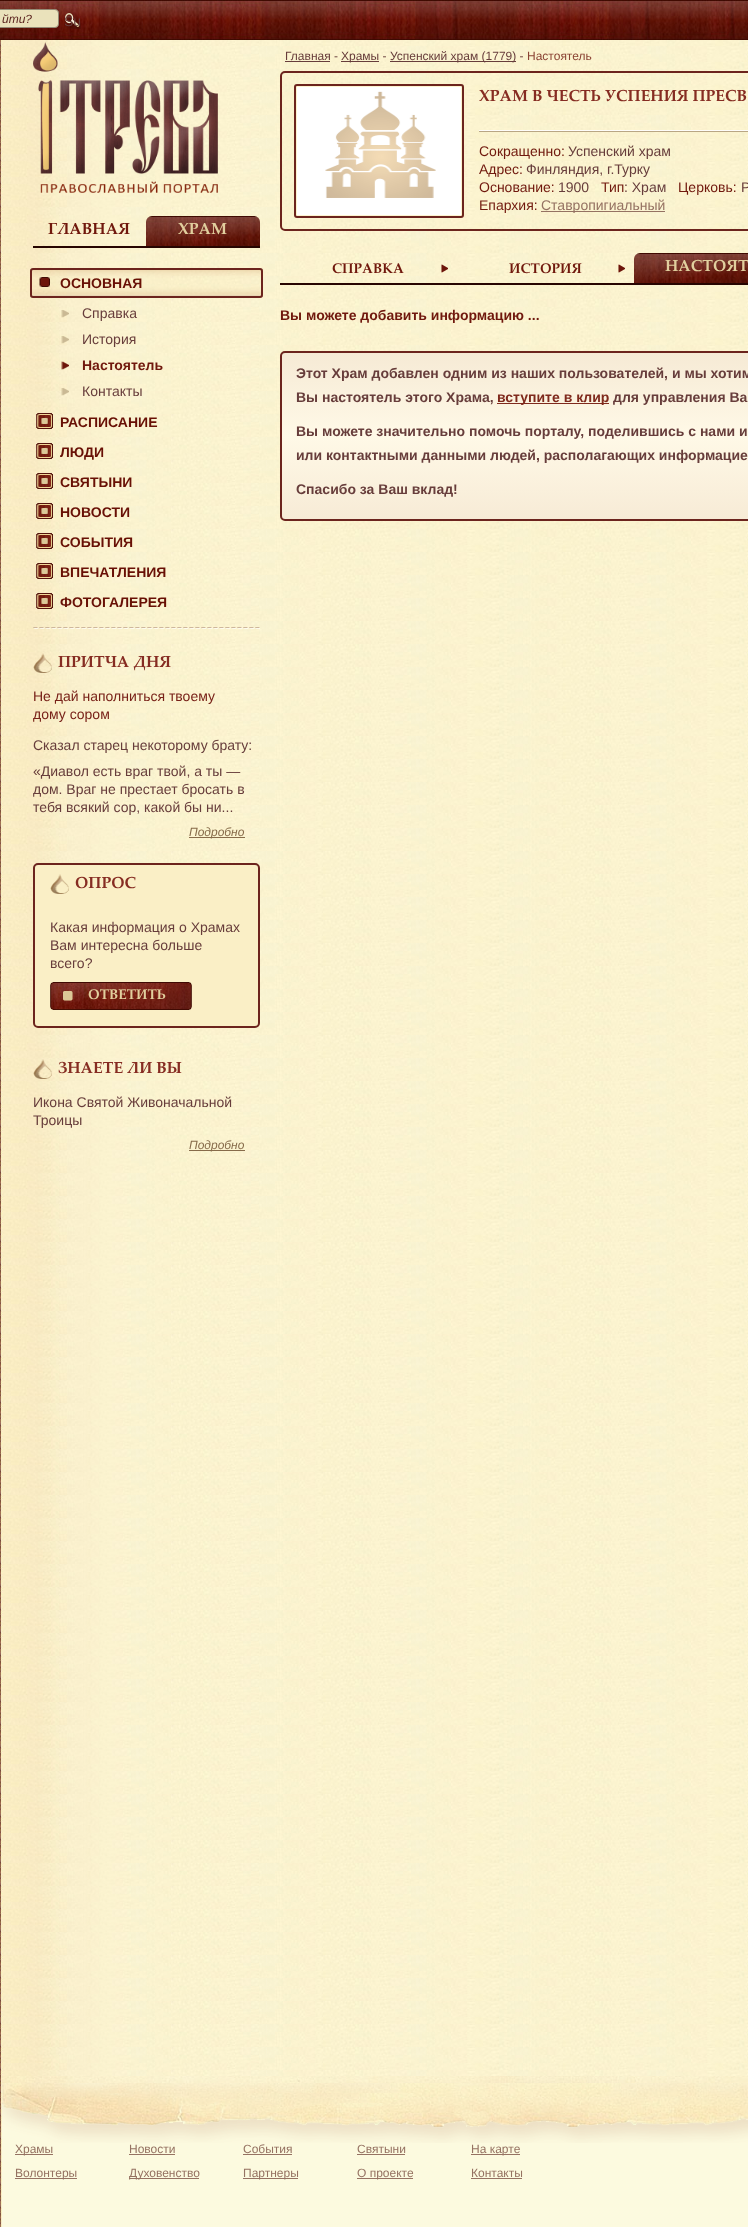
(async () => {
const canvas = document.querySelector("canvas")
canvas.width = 748
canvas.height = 2227
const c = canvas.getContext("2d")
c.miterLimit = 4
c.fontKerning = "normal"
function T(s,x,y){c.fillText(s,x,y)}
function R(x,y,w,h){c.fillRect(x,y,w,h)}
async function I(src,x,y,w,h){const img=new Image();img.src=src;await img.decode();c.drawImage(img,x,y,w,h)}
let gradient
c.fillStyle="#fff"
R(0,0,748,2227)
await I("1.png",0,40,748,2187)
await I("2.png",0,0,748,40)
c.fillStyle="#eae2bb"
c.beginPath()
c.roundRect(-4.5,9.5,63,18,3.5)
c.fill()
c.strokeStyle="#938b76"
c.stroke()
c.font="italic 12px Liberation Sans"
c.fillStyle="#5e2923"
T("йти?",2,23)
await I("3.png",64,12,17,17)
c.font="14px Liberation Sans"
c.fillStyle="#673d3b"
T("Su",64,26)
await I("4.png",33,42,185,151)
c.fillStyle="#270501"
R(33,246,227,2)
c.font="bold 16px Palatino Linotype"
c.fillStyle="#70180d"
T("ГЛАВНАЯ",48,234)
await I("5.png",146,216,114,30)
c.fillStyle="#e1cf9e"
T("ХРАМ",178,234)
await I("6.png",30,268,233,29)
await I("7.png",39,277,11,10)
c.beginPath()
c.roundRect(31,269,231,28,2)
c.strokeStyle="#6c241d"
c.lineWidth=2
c.stroke()
c.font="bold 14px Liberation Sans"
c.fillStyle="#681005"
T("ОСНОВНАЯ",60,288)
await I("8.png",61,310,8,8)
c.font="14px Liberation Sans"
c.fillStyle="#673d3b"
T("Справка",82,318)
await I("9.png",61,336,8,8)
T("История",82,344)
await I("10.png",61,361,8,9)
c.font="bold 14px Liberation Sans"
c.fillStyle="#70180d"
T("Настоятель",82,370)
await I("11.png",61,388,8,8)
c.font="14px Liberation Sans"
c.fillStyle="#673d3b"
T("Контакты",82,396)
await I("12.png",36,413,17,16)
c.font="bold 14px Liberation Sans"
c.fillStyle="#681005"
T("РАСПИСАНИЕ",60,427)
await I("13.png",36,443,17,16)
T("ЛЮДИ",60,457)
await I("14.png",36,473,17,16)
T("СВЯТЫНИ",60,487)
await I("15.png",36,503,17,16)
T("НОВОСТИ",60,517)
await I("16.png",36,533,17,16)
T("СОБЫТИЯ",60,547)
await I("17.png",36,563,17,16)
T("ВПЕЧАТЛЕНИЯ",60,577)
await I("18.png",36,593,17,16)
T("ФОТОГАЛЕРЕЯ",60,607)
await I("19.png",33,627,227,2)
await I("20.png",33,653,19,20)
c.font="bold 16px Palatino Linotype"
c.fillStyle="#862c22"
T("ПРИТЧА ДНЯ",58,667)
c.font="14px Liberation Sans"
c.fillStyle="#782118"
T("Не дай наполниться твоему",33,701)
T("дому сором",33,719)
c.fillStyle="#673d3b"
T("Сказал старец некоторому брату:",33,750)
T("«Диавол есть враг твой, а ты —",33,776)
T("дом. Враг не престает бросать в",33,794)
T("тебя всякий сор, какой бы ни...",33,812)
c.fillStyle="#876b4a"
R(189,837,56,1)
c.font="italic 12px Liberation Sans"
T("Подробно",189,836)
c.fillStyle="#faefc6"
c.beginPath()
c.roundRect(34,864,225,163,4)
c.fill()
c.stroke()
await I("21.png",50,874,19,20)
c.font="bold 16px Palatino Linotype"
c.fillStyle="#862c22"
T("ОПРОС",75,888)
c.font="14px Liberation Sans"
c.fillStyle="#673d3b"
T("Какая информация о Храмах",50,932)
T("Вам интересна больше",50,950)
T("всего?",50,968)
await I("22.png",50,982,142,28)
c.font="bold 14px Palatino Linotype"
c.fillStyle="#e1cf9e"
T("ОТВЕТИТЬ",88,999)
await I("23.png",33,1059,19,20)
c.font="bold 16px Palatino Linotype"
c.fillStyle="#862c22"
T("ЗНАЕТЕ ЛИ ВЫ",58,1073)
c.font="14px Liberation Sans"
c.fillStyle="#673d3b"
T("Икона Святой Живоначальной",33,1107)
T("Троицы",33,1125)
c.fillStyle="#876b4a"
R(189,1150,56,1)
c.font="italic 12px Liberation Sans"
T("Подробно",189,1149)
c.font="12px Liberation Sans"
c.fillStyle="#673d3b"
T("Главная -",285,60)
R(285,61,45,1)
R(341,61,38,1)
T("Храмы -",341,60)
R(390,61,126,1)
T("Успенский храм (1779) -",390,60)
c.fillStyle="#8b4434"
T("Настоятель",527,60)
c.beginPath()
c.roundRect(281,72,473,158,4)
c.stroke()
c.fillStyle="#fcf3cf"
c.beginPath()
c.roundRect(295,85,168,132,2)
c.fill()
c.stroke()
await I("24.png",297,87,164,128)
c.font="bold 16px Palatino Linotype"
c.fillStyle="#862c22"
T("ХРАМ В ЧЕСТЬ УСПЕНИЯ ПРЕСВ",479,101)
await I("25.png",479,130,269,2)
c.font="14px Liberation Sans"
c.fillStyle="#70180d"
T("Сокращенно:",479,156)
c.fillStyle="#673d3b"
T("Успенский храм",568,156)
c.fillStyle="#70180d"
T("Адрес:",479,174)
c.fillStyle="#673d3b"
T("Финляндия, г.Турку",526,174)
c.fillStyle="#70180d"
T("Основание:",479,192)
c.fillStyle="#673d3b"
T("1900",558,192)
c.fillStyle="#70180d"
T("Тип",601,192)
c.fillStyle="#673d3b"
T(": Храм",624,192)
c.fillStyle="#70180d"
T("Церковь:",678,192)
c.fillStyle="#673d3b"
T("Р",741,192)
c.fillStyle="#70180d"
T("Епархия:",479,210)
c.fillStyle="#957262"
R(541,211,124,1)
T("Ставропигиальный",541,210)
c.fillStyle="#270501"
R(280,283,468,2)
await I("26.png",441,264,7,9)
c.font="bold 14px Palatino Linotype"
c.fillStyle="#70180d"
T("СПРАВКА",332,273)
await I("27.png",618,264,7,9)
T("ИСТОРИЯ",509,273)
await I("28.png",634,253,114,30)
c.font="bold 16px Palatino Linotype"
c.fillStyle="#e1cf9e"
T("НАСТОЯТ",665,271)
c.font="bold 14px Liberation Sans"
c.fillStyle="#70180d"
T("Вы можете добавить информацию ...",280,320)
c.save()
c.beginPath()
c.roundRect(280,351,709,170,5)
c.clip()
gradient = c.createLinearGradient(635,353,635,519)
gradient.addColorStop(0,"#f6ead5")
gradient.addColorStop(.5,"#fff9e7")
gradient.addColorStop(1,"#f7ebd6")
c.fillStyle = gradient
R(280,353,468,166)
c.restore()
c.beginPath()
c.roundRect(281,352,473,168,4)
c.stroke()
c.fillStyle="#673d3b"
T("Этот Храм добавлен одним из наших пользователей, и мы хотим",296,378)
T("Вы настоятель этого Храма,",296,402)
c.fillStyle="#7f291c"
R(497,403,112,1)
T("вступите в клир",497,402)
c.fillStyle="#673d3b"
T("для управления Ва",613,402)
T("Вы можете значительно помочь порталу, поделившись с нами и",296,436)
T("или контактными данными людей, располагающих информацие",296,460)
T("Спасибо за Ваш вклад!",296,494)
c.fillStyle="#fcfadf"
R(2,2143,746,84)
await I("29.png",2,2076,746,67)
c.fillStyle="#957262"
R(15,2154,38,1)
c.font="12px Liberation Sans"
T("Храмы",15,2153)
T("Новости",129,2153)
R(129,2154,46,1)
T("События",243,2153)
R(243,2154,49,1)
T("Святыни",357,2153)
R(357,2154,48,1)
R(471,2154,49,1)
T("На карте",471,2153)
R(15,2178,62,1)
T("Волонтеры",15,2177)
R(129,2178,70,1)
T("Духовенство",129,2177)
R(243,2178,55,1)
T("Партнеры",243,2177)
R(357,2178,56,1)
T("О проекте",357,2177)
T("Контакты",471,2177)
R(471,2178,51,1)
})()
